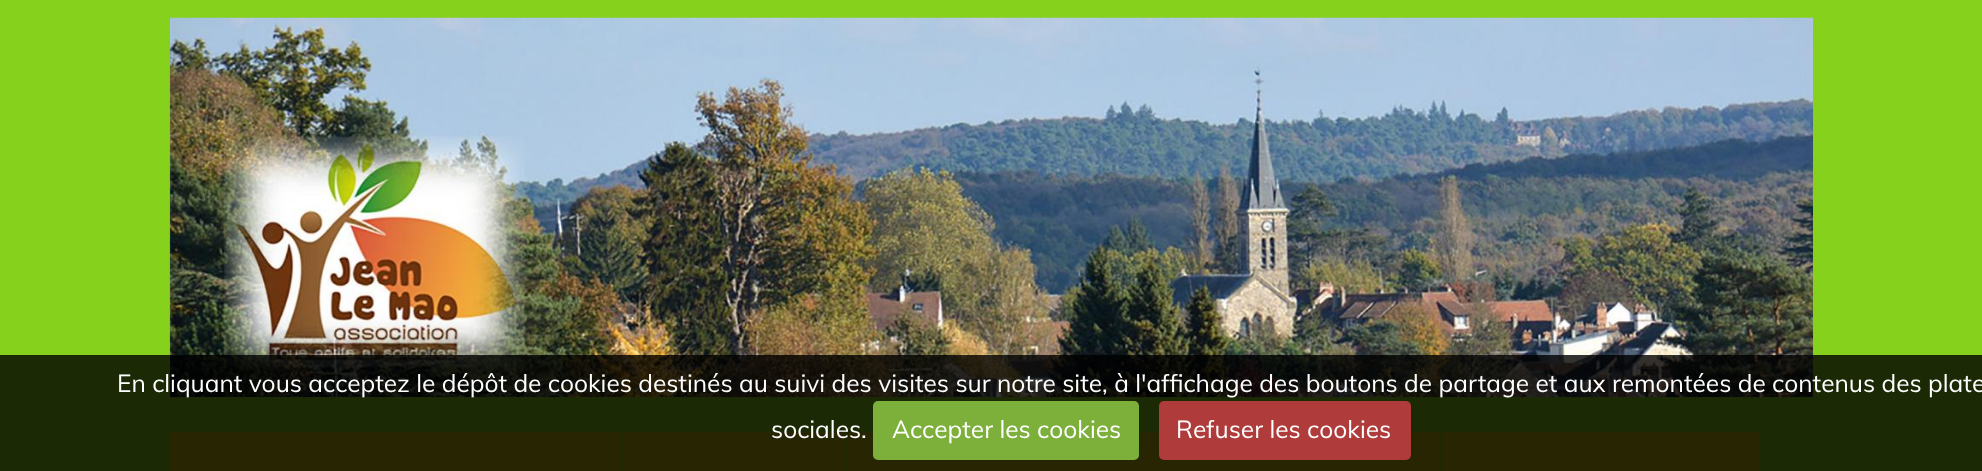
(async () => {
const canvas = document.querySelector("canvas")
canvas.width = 1982
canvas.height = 471
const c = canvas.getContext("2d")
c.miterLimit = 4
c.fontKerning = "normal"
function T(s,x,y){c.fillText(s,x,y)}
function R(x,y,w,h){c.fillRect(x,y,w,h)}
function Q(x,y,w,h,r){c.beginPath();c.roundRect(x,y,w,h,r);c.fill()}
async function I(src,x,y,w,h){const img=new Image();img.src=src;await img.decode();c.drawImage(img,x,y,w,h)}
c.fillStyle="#85d11c"
R(0,0,1982,471)
await I("1.png",169,17,1644,381)
c.fillStyle="#c4b80b"
R(170,432,233,39)
R(404,432,217,39)
R(623,432,222,39)
R(847,432,368,39)
R(1216,432,224,39)
R(1442,432,317,39)
c.fillStyle="#000000cc"
R(0,355,1982,116)
c.font="24.5px Muli"
c.fillStyle="#fff"
T("En cliquant vous acceptez le dépôt de cookies destinés au suivi des visites sur notre site, à l'affichage des boutons de partage et aux remontées de contenus des plate",117,392)
T("sociales.",771,438)
c.fillStyle="#7daf3b"
Q(873,401,266,59,5)
c.fillStyle="#fff"
T("Accepter les cookies",892,438)
c.fillStyle="#af3b3b"
Q(1159,401,252,59,5)
c.fillStyle="#fff"
T("Refuser les cookies",1176,438)
})()
